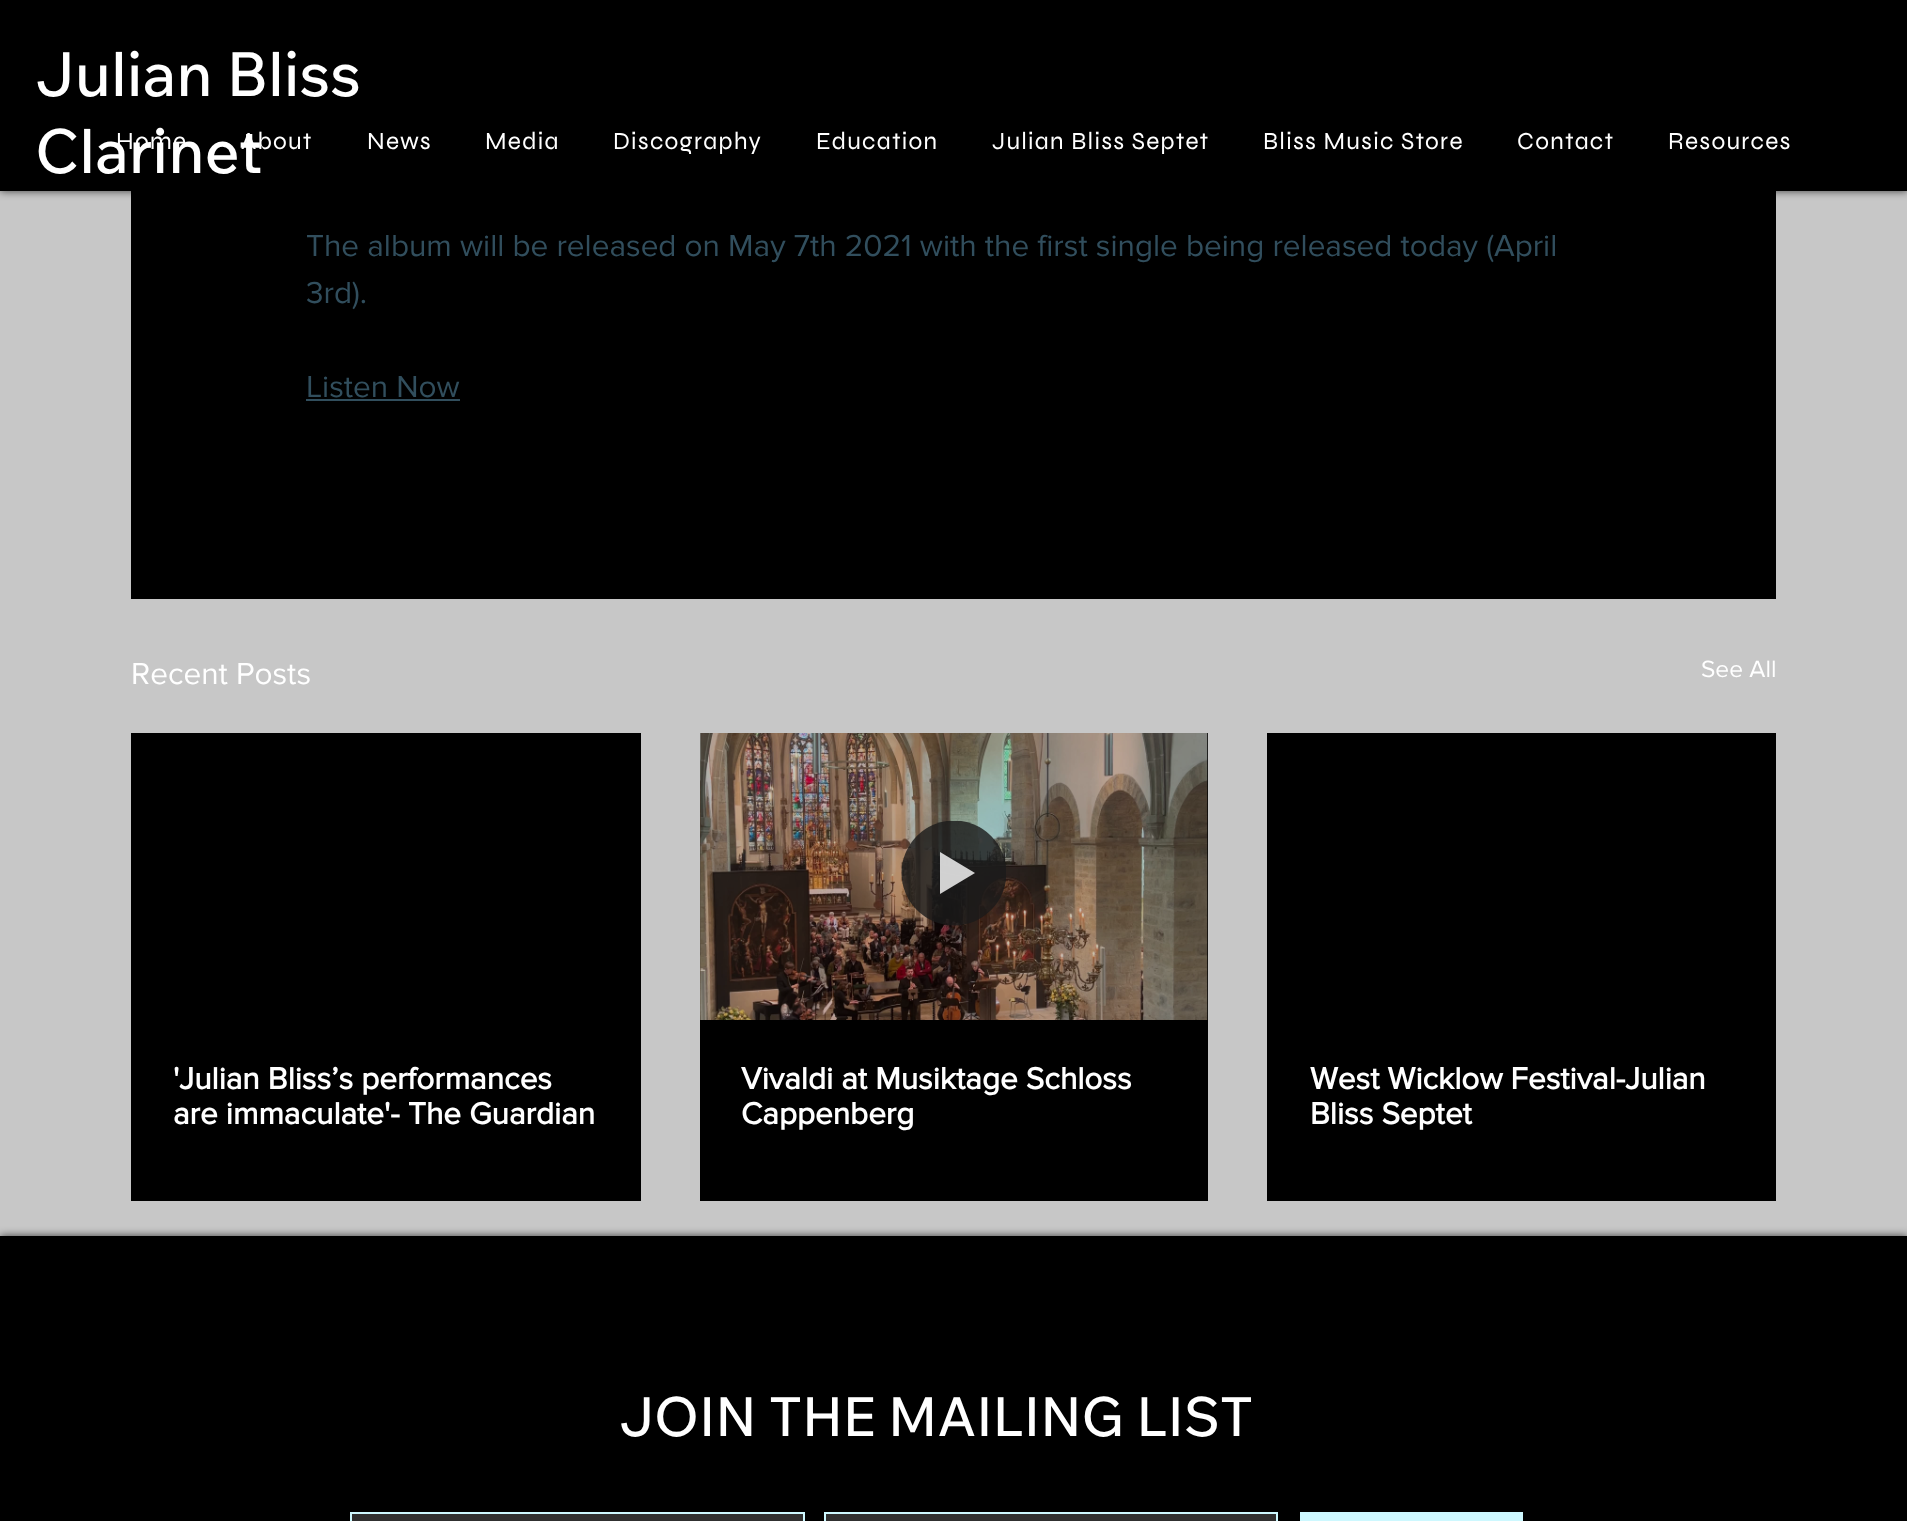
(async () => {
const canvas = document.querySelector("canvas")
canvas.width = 1907
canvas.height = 1521
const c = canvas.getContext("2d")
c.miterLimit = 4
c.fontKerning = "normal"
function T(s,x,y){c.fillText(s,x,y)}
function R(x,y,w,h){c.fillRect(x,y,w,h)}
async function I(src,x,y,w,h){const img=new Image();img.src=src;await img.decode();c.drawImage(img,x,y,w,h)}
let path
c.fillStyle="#c7c7c7"
R(0,0,1907,1521)
c.fillStyle="#000"
R(131,191,1645,408)
c.fillStyle="#000000b3"
c.filter="blur(4.5px)"
c.beginPath()
c.rect(0,0,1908,191)
c.fill()
c.filter="none"
c.fillStyle="#000"
R(0,0,1907,191)
c.font="500 61.25px Wix Madefor Text"
c.fillStyle="#fff"
T("Julian Bliss",35,96)
c.letterSpacing="1.25px"
c.font="24.5px Syne"
T("Home",116,149)
T("About",241,149)
c.letterSpacing="0px"
c.font="500 61.25px Wix Madefor Text"
T("Clarinet",35,173)
c.letterSpacing="1.25px"
c.font="24.5px Syne"
T("News",367,149)
T("Media",485,149)
T("Discography",613,149)
T("Education",816,149)
T("Julian Bliss Septet",992,149)
T("Bliss Music Store",1263,149)
T("Contact",1517,149)
T("Resources",1668,149)
c.letterSpacing="0px"
c.font="31.5px 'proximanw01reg'"
c.fillStyle="#314e5d"
T("The album will be released on May 7th 2021 with the first single being released today (April",306,256)
T("3rd).",306,303)
T("Listen Now",306,397)
R(306,399,154,2)
c.fillStyle="#fff"
T("Recent Posts",131,684)
c.font="24.5px 'proximanw01reg'"
T("See All",1701,677)
c.fillStyle="#000"
R(131,733,510,468)
c.font="bold 31.5px 'proximanw01reg'"
c.fillStyle="#fff"
T("'Julian Bliss’s performances",173,1089)
T("are immaculate'- The Guardian",173,1124)
c.fillStyle="#000"
R(700,1020,508,181)
R(1207,733,1,287)
await I("1.png",700,733,508,287)
c.save()
c.beginPath()
c.rect(901,821,105,105)
c.clip()
c.fillStyle="#1a1a1acc"
c.beginPath()
c.arc(954,873,52.5,0,7)
c.fill()
c.restore()
c.fillStyle="#ffffffcc"
path = new Path2D("M940 852v42l35-21z")
c.fill(path)
c.fillStyle="#fff"
T("Vivaldi at Musiktage Schloss",741,1089)
T("Cappenberg",741,1124)
c.fillStyle="#000"
R(1267,733,509,468)
c.fillStyle="#fff"
T("West Wicklow Festival-Julian",1310,1089)
T("Bliss Septet",1310,1124)
c.fillStyle="#000000b3"
c.filter="blur(4.5px)"
c.beginPath()
c.rect(0,1236,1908,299)
c.fill()
c.filter="none"
c.fillStyle="#000"
R(0,1236,1907,285)
c.font="500 54.25px Wix Madefor Text"
c.fillStyle="#fff"
T("JOIN THE MAILING LIST",619,1436)
c.fillStyle="#303030"
c.beginPath()
c.rect(351,1513,453,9)
c.fill()
c.strokeStyle="#cdf8ff"
c.lineWidth=2
c.stroke()
c.beginPath()
c.rect(825,1513,452,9)
c.fill()
c.stroke()
c.fillStyle="#cdf8ff"
R(1300,1512,223,9)
})()
